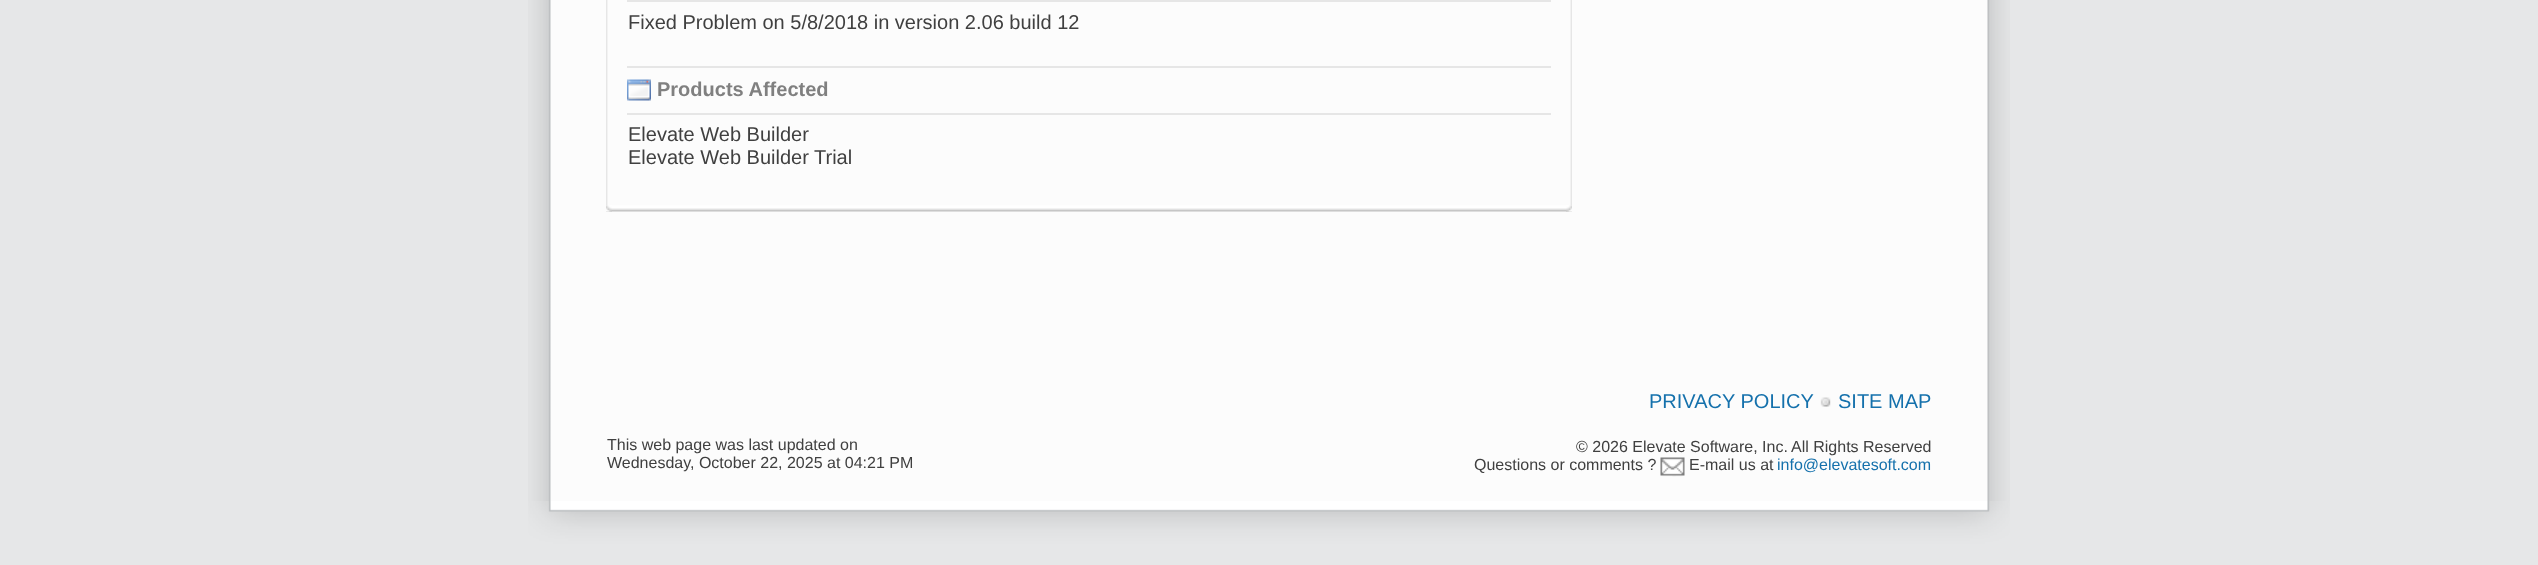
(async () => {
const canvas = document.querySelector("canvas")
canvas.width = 2538
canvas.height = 565
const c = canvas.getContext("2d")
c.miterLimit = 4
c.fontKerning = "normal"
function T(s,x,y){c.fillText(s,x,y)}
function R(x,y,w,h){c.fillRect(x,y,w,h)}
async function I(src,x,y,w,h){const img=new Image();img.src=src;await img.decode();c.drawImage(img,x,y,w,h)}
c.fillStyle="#e6e7e8"
R(0,0,2538,565)
await I("1.png",528,0,1482,501)
await I("2.png",606,0,2,212)
await I("3.png",1570,0,2,212)
await I("4.png",606,205,966,7)
await I("5.png",606,205,6,7)
await I("6.png",1566,205,6,7)
c.fillStyle="#e6e6e6"
R(627,0,924,2)
c.font="20px Liberation Sans"
c.fillStyle="#404040"
T("Fixed Problem on 5/8/2018 in version 2.06 build 12",628,29)
c.fillStyle="#e6e6e6"
R(627,66,924,2)
await I("7.png",627,79,24,22)
c.font="bold 20px Liberation Sans"
c.fillStyle="#808080"
T("Products Affected",657,96)
c.fillStyle="#e6e6e6"
R(627,113,924,2)
c.font="20px Liberation Sans"
c.fillStyle="#404040"
T("Elevate Web Builder",628,141)
T("Elevate Web Builder Trial",628,164)
c.font="16px Liberation Sans"
T("This web page was last updated on",607,450)
T("Wednesday, October 22, 2025 at 04:21 PM",607,468)
c.font="20px Liberation Sans"
c.fillStyle="#1571ac"
T("PRIVACY POLICY",1649,408)
await I("8.png",1820,397,11,10)
T("SITE MAP",1838,408)
c.font="16px Liberation Sans"
c.fillStyle="#404040"
T("© 2026 Elevate Software, Inc.",1576,452)
T("All Rights Reserved",1791,452)
T("Questions or comments ?",1474,470)
await I("9.png",1660,457,25,20)
T("E-mail us at",1689,470)
c.fillStyle="#1571ac"
T("info@elevatesoft.com",1777,470)
await I("10.png",528,501,1482,64)
})()
